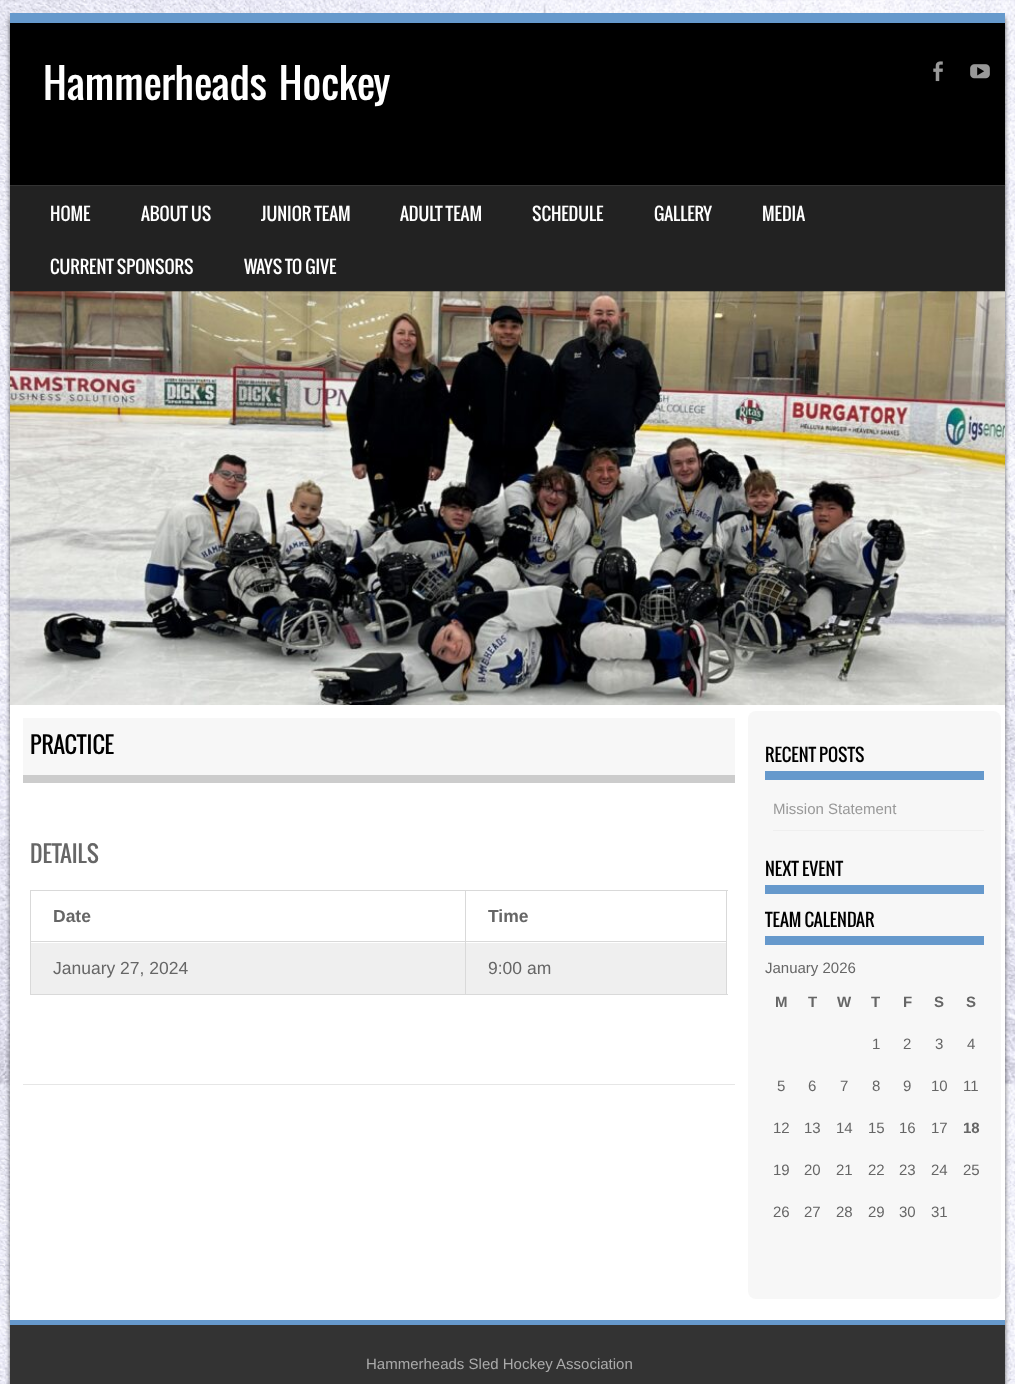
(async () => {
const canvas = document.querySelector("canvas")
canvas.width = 1015
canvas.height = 1384
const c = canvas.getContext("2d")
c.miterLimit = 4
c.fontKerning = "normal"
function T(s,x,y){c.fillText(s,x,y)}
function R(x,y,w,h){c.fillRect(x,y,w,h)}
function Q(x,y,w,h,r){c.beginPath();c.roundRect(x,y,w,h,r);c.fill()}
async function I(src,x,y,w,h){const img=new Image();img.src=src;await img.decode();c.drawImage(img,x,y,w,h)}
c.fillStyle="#fff"
R(0,0,1015,1384)
await I("1.png",0,0,1015,1384)
c.fillStyle="#00000099"
c.filter="blur(2.5px)"
c.beginPath()
c.rect(10,18,995,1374)
c.fill()
c.filter="none"
c.fillStyle="#000"
R(10,23,995,269)
c.fillStyle="#69c"
R(10,13,995,10)
c.wordSpacing="5px"
c.font="40px Oswald"
c.fillStyle="#fff"
T("Hammerheads Hockey",43,100)
await I("2.png",933,61,10,21)
await I("3.png",970,64,20,15)
c.fillStyle="#222"
R(10,186,995,105)
c.fillStyle="#333"
R(10,185,995,1)
c.wordSpacing="0px"
c.font="17.5px Oswald"
c.fillStyle="#fff"
T("HOME",50,221)
T("ABOUT US",141,221)
T("JUNIOR TEAM",261,221)
T("ADULT TEAM",400,221)
T("SCHEDULE",532,221)
T("GALLERY",654,221)
T("MEDIA",762,221)
T("CURRENT SPONSORS",50,274)
T("WAYS TO GIVE",244,274)
await I("4.png",10,291,995,414)
R(10,705,995,615)
c.fillStyle="#e6e6e6"
R(23,1084,712,1)
c.fillStyle="#f7f7f7"
R(23,718,712,57)
c.fillStyle="#ccc"
R(23,775,712,8)
c.font="22.5px Oswald"
c.fillStyle="#000"
T("PRACTICE",30,754)
c.fillStyle="#666"
T("DETAILS",30,863)
c.fillStyle="#d9d9d9"
R(30,890,698,1)
R(726,890,1,105)
R(30,994,698,1)
R(30,891,1,50)
c.font="bold 17.5px Liberation Sans"
c.fillStyle="#666"
T("Date",53,922)
c.fillStyle="#d9d9d9"
R(465,891,1,50)
c.fillStyle="#666"
T("Time",488,922)
c.fillStyle="#efefef"
R(31,943,434,51)
c.fillStyle="#d9d9d9"
R(30,941,696,1)
R(30,941,1,53)
c.font="17.5px Liberation Sans"
c.fillStyle="#666"
T("January 27, 2024",53,974)
c.fillStyle="#efefef"
R(466,943,260,51)
c.fillStyle="#d9d9d9"
R(465,941,1,53)
c.fillStyle="#666"
T("9:00 am",488,974)
c.fillStyle="#f7f7f7"
Q(748,711,253,588,8)
c.fillStyle="#69c"
R(765,771,219,9)
c.font="17.5px Oswald"
c.fillStyle="#000"
T("RECENT POSTS",765,762)
c.fillStyle="#efefef"
R(773,830,211,1)
c.font="15px Liberation Sans"
c.fillStyle="#999"
T("Mission Statement",773,814)
c.fillStyle="#69c"
R(765,885,219,9)
c.font="17.5px Oswald"
c.fillStyle="#000"
T("NEXT EVENT",765,876)
c.fillStyle="#69c"
R(765,936,219,9)
c.fillStyle="#000"
T("TEAM CALENDAR",765,927)
c.font="15px Liberation Sans"
c.fillStyle="#666"
T("January 2026",765,973)
c.font="bold 15px Liberation Sans"
T("M",775,1007)
T("T",808,1007)
T("W",837,1007)
T("T",871,1007)
T("F",903,1007)
T("S",934,1007)
T("S",966,1007)
c.font="15px Liberation Sans"
T("1",872,1049)
T("2",903,1049)
T("3",935,1049)
T("4",967,1049)
T("5",777,1091)
T("6",808,1091)
T("7",840,1091)
T("8",872,1091)
T("9",903,1091)
T("10",931,1091)
T("11",963,1091)
T("12",773,1133)
T("13",804,1133)
T("14",836,1133)
T("15",868,1133)
T("16",899,1133)
T("17",931,1133)
c.font="bold 15px Liberation Sans"
T("18",963,1133)
c.font="15px Liberation Sans"
T("19",773,1175)
T("20",804,1175)
T("21",836,1175)
T("22",868,1175)
T("23",899,1175)
T("24",931,1175)
T("25",963,1175)
T("26",773,1217)
T("27",804,1217)
T("28",836,1217)
T("29",868,1217)
T("30",899,1217)
T("31",931,1217)
c.fillStyle="#333"
R(10,1325,995,59)
c.fillStyle="#69c"
R(10,1320,995,5)
c.fillStyle="#aaa"
T("Hammerheads Sled Hockey Association",366,1369)
})()
